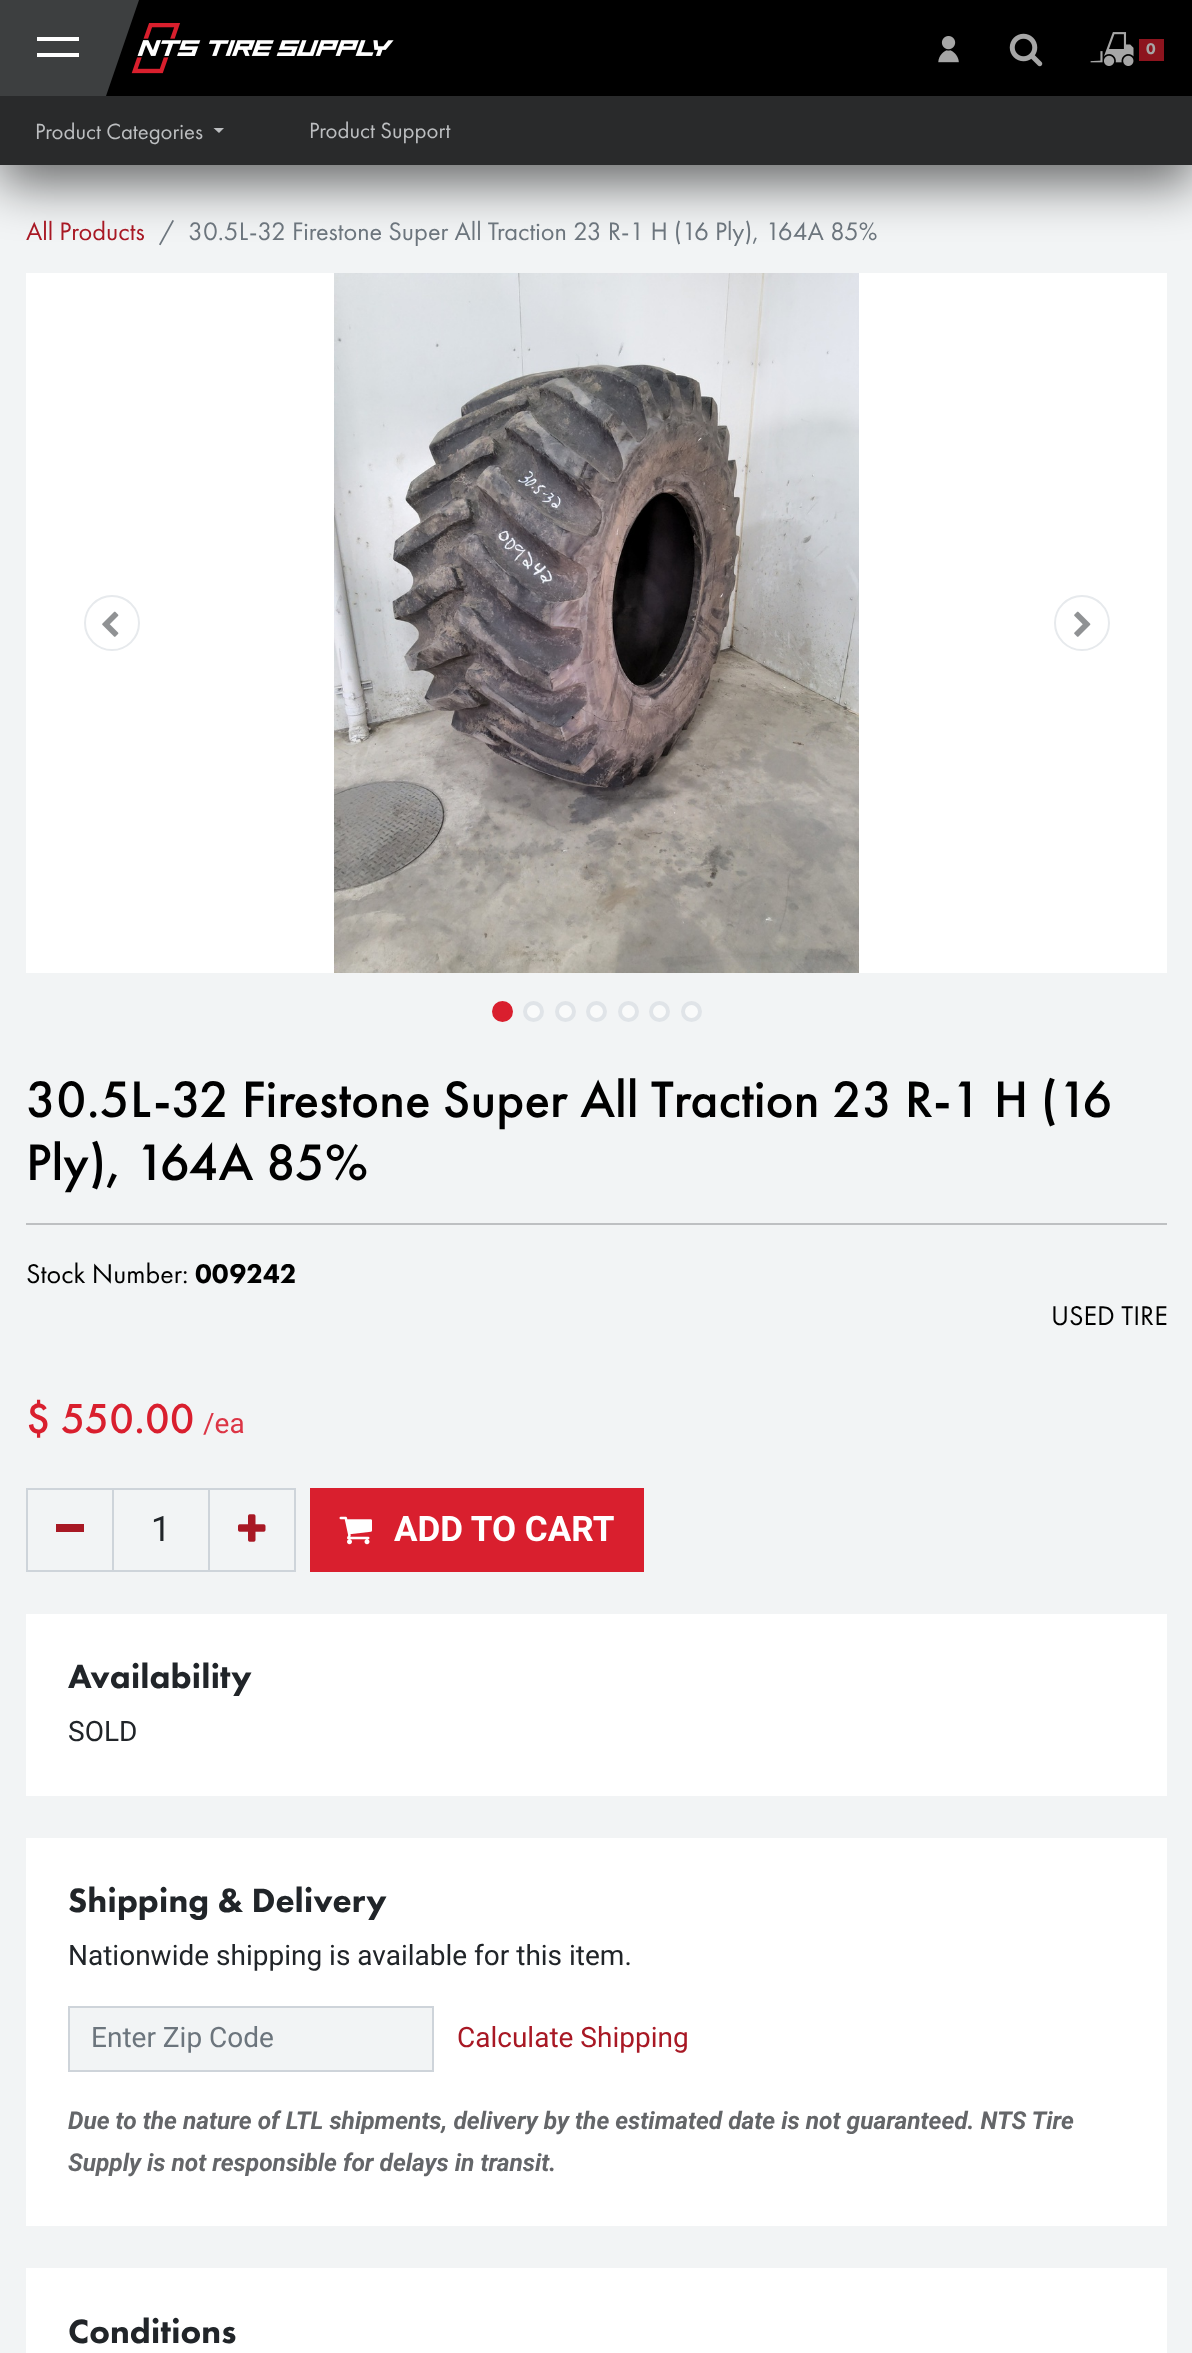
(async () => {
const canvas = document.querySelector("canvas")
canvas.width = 1192
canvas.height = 2353
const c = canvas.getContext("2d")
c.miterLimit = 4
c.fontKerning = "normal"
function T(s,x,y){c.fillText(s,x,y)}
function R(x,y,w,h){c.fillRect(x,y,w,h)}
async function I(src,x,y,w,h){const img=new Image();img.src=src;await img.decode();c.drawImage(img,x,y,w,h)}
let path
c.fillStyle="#f2f4f5"
R(0,0,1192,2353)
c.fillStyle="#00000099"
c.filter="blur(26px)"
c.beginPath()
c.rect(0,114,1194,68)
c.fill()
c.filter="none"
c.fillStyle="#000"
R(106,0,1086,96)
await I("1.png",131,23,263,51)
c.fillStyle="#3d3f40"
path = new Path2D("M-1 0h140l-33 96h-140z")
c.fill(path)
c.fillStyle="#fff"
R(37,37,42,4)
R(37,53,42,4)
await I("2.png",938,36,21,27)
await I("3.png",1009,33,34,34)
await I("4.png",1090,32,44,34)
c.fillStyle="#8d141e"
R(1139,39,25,22)
c.letterSpacing="2px"
c.font="900 16px Futura PT"
c.fillStyle="#a6a6a6"
T("0",1146,54)
c.fillStyle="#292a2b"
R(0,96,1192,69)
c.letterSpacing="0px"
c.font="22.75px Futura PT"
c.fillStyle="#bcbec0"
T("Product Categories",35,139)
path = new Path2D("M213.5 128h10.5l-5 5z")
c.fill(path)
T("Product Support",309,138)
c.font="26.25px Futura PT"
c.fillStyle="#a81824"
T("All Products",26,240)
c.fillStyle="#6c757d"
T("/",159,240)
T("30.5L-32 Firestone Super All Traction 23 R-1 H (16 Ply), 164A 85%",188,240)
c.fillStyle="#fff"
R(26,273,1141,700)
await I("5.png",334,273,525,700)
c.beginPath()
c.arc(112,623,27,0,7)
c.strokeStyle="#e7eaed"
c.lineWidth=2
c.stroke()
await I("6.png",102,611,17,26)
c.beginPath()
c.arc(1082,623,27,0,7)
c.stroke()
await I("7.png",1074,611,17,26)
c.fillStyle="#d91f2e"
c.beginPath()
c.arc(502.5,1011.5,8.5,0,7)
c.fill()
c.strokeStyle="#d91f2e"
c.lineWidth=4
c.stroke()
c.fillStyle="#f9fafa"
c.beginPath()
c.arc(533.5,1011.5,8.5,0,7)
c.fill()
c.strokeStyle="#e0e4e8"
c.stroke()
c.beginPath()
c.arc(565.5,1011.5,8.5,0,7)
c.fill()
c.stroke()
c.beginPath()
c.arc(596.5,1011.5,8.5,0,7)
c.fill()
c.stroke()
c.beginPath()
c.arc(628.5,1011.5,8.5,0,7)
c.fill()
c.stroke()
c.beginPath()
c.arc(659.5,1011.5,8.5,0,7)
c.fill()
c.stroke()
c.beginPath()
c.arc(691.5,1011.5,8.5,0,7)
c.fill()
c.stroke()
c.font="500 53.2px Futura PT"
c.fillStyle="#000"
T("30.5L-32 Firestone Super All Traction 23 R-1 H (16",26,1117)
T("Ply), 164A 85%",26,1180)
c.fillStyle="#bec0c2"
R(26,1223,1141,2)
c.font="28px Futura PT"
c.fillStyle="#000"
T("Stock Number:",26,1283)
c.font="900 28px Futura PT"
T("009242",195,1283)
c.font="28px Futura PT"
T("USED TIRE",1051,1325)
c.font="500 43.5px Futura PT"
c.fillStyle="#d91f2e"
T("$ 550.00",26,1433)
c.font="28px Roboto"
c.fillStyle="#dc3545"
T("/ea",203,1433)
c.strokeStyle="#ced4da"
c.lineWidth=2
c.strokeRect(113,1489,96,82)
c.strokeRect(27,1489,86,82)
c.fillStyle="#a81824"
R(56,1524,28,8)
c.font="35px Roboto"
c.fillStyle="#212529"
T("1",151,1541)
c.strokeRect(209,1489,86,82)
await I("8.png",238,1514,28,28)
c.fillStyle="#d91f2e"
R(310,1488,334,84)
await I("9.png",339,1516,33,29)
c.font="bold 35px Roboto"
c.fillStyle="#fff"
T("ADD TO CART",394,1541)
R(26,1614,1141,182)
c.font="900 35px Futura PT"
c.fillStyle="#212529"
T("Availability",68,1688)
c.font="28px Roboto"
T("SOLD",68,1741)
c.fillStyle="#fff"
R(26,1838,1141,388)
c.font="900 35px Futura PT"
c.fillStyle="#212529"
T("Shipping & Delivery",68,1912)
c.font="28px Roboto"
T("Nationwide shipping is available for this item.",68,1965)
c.fillStyle="#f2f4f5"
c.beginPath()
c.rect(69,2007,364,64)
c.fill()
c.stroke()
c.fillStyle="#6c757d"
T("Enter Zip Code",91,2047)
c.fillStyle="#a81824"
T("Calculate Shipping",457,2047)
c.font="italic bold 24.5px Roboto"
c.fillStyle="#646669"
T("Due to the nature of LTL shipments, delivery by the estimated date is not guaranteed. NTS Tire",68,2129)
T("Supply is not responsible for delays in transit.",68,2171)
c.fillStyle="#fff"
R(26,2268,1141,85)
c.font="900 35px Futura PT"
c.fillStyle="#212529"
T("Conditions",68,2343)
})()
